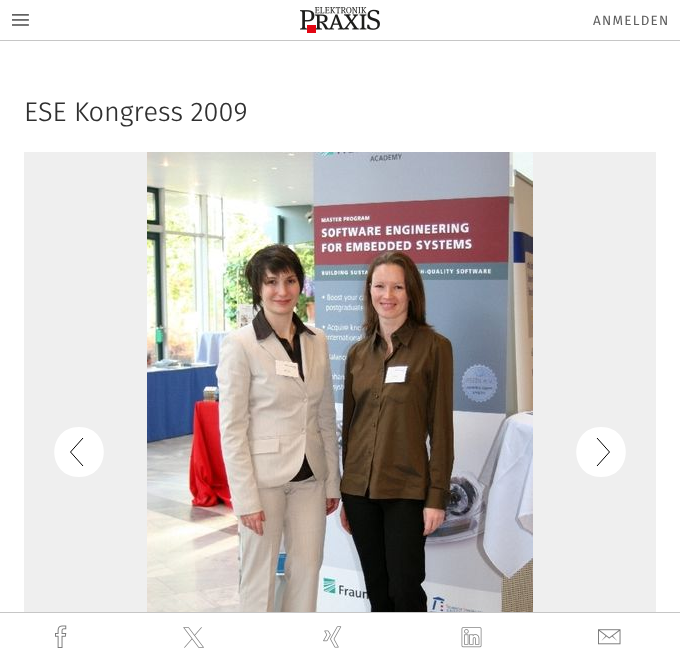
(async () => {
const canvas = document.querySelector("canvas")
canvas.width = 680
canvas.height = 662
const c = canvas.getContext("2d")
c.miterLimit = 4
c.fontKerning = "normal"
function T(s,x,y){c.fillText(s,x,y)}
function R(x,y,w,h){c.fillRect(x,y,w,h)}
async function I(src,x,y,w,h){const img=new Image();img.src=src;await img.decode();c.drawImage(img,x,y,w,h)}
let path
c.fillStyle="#fff"
R(0,0,680,662)
c.fillStyle="#c6c6c6"
R(0,40,680,1)
await I("1.png",12,14,17,12)
await I("2.png",300,7,80,26)
c.letterSpacing="1.25px"
c.font="13.5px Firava"
c.fillStyle="#5e5e5e"
T("ANMELDEN",593,25)
c.letterSpacing="0px"
c.font="300 27px Firava"
c.fillStyle="#303030"
T("ESE Kongress 2009",24,121)
c.fillStyle="#efefef"
R(24,152,632,460)
c.fillStyle="#fff"
path = new Path2D("M79 477c33 0 33-50 0-50c-33 0-33 50 0 50")
c.fill(path)
path = new Path2D("M83 438l-12.5 14l12.5 14")
c.strokeStyle="#000"
c.stroke(path)
await I("3.png",147,152,386,460)
path = new Path2D("M601 427c-33 0-33 50 0 50c33 0 33-50 0-50")
c.fill(path)
path = new Path2D("M597 466l12.5-14l-12.5-14")
c.stroke(path)
c.fillStyle="#c6c6c6"
R(0,612,680,1)
await I("4.png",55,625,12,23)
await I("5.png",183,627,21,21)
await I("6.png",323,626,19,22)
await I("7.png",461,627,21,21)
await I("8.png",598,629,23,16)
})()
